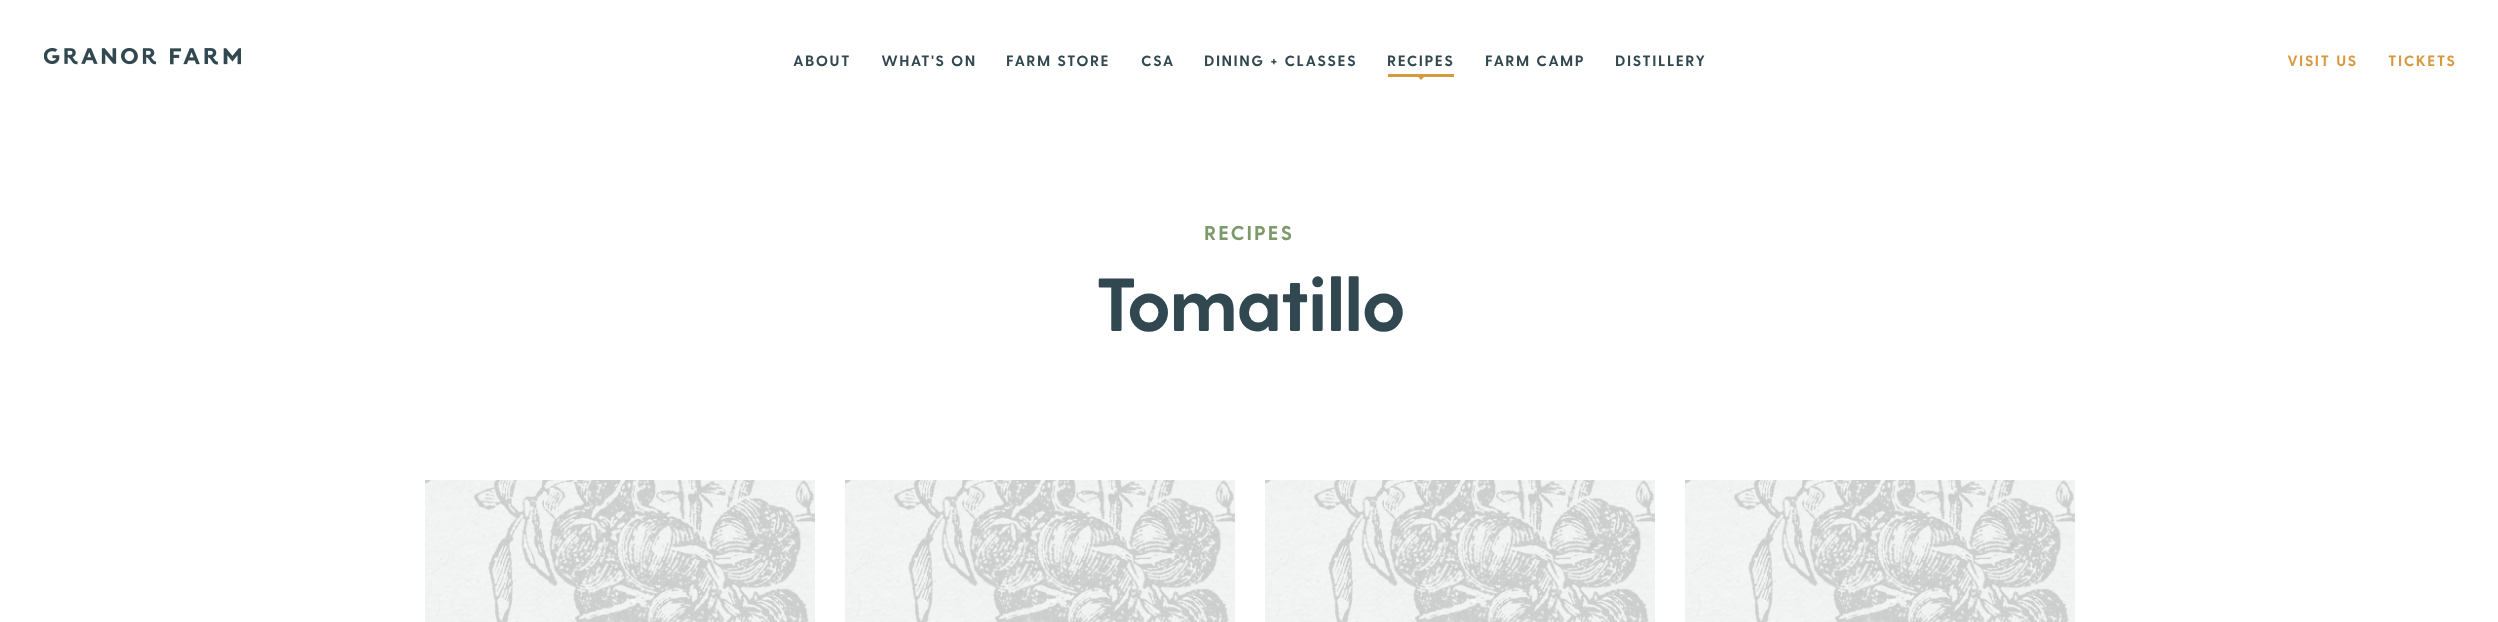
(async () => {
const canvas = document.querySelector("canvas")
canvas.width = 2498
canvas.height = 622
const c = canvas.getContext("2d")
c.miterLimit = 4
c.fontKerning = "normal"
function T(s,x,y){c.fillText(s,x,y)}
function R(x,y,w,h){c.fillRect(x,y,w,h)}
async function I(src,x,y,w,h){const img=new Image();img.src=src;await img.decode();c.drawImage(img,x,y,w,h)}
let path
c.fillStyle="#fff"
R(0,0,2498,622)
await I("1.png",44,48,197,17)
c.letterSpacing="1.5px"
c.font="bold 15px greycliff"
c.fillStyle="#324851"
T("ABOUT",793,66)
T("WHAT'S ON",881,66)
T("FARM STORE",1006,66)
T("CSA",1141,66)
T("DINING + CLASSES",1204,66)
T("RECIPES",1387,66)
c.fillStyle="#d7993d"
path = new Path2D("M1417.5 76h7.5l-4 4z")
c.fill(path)
R(1388,74,66,3)
c.fillStyle="#324851"
T("FARM CAMP",1485,66)
T("DISTILLERY",1615,66)
c.fillStyle="#d7993d"
T("VISIT US",2287,66)
T("TICKETS",2388,66)
c.letterSpacing="2px"
c.font="bold 20px greycliff"
c.fillStyle="#7d9a6b"
T("RECIPES",1204,240)
c.letterSpacing="-1.9px"
c.font="bold 75px greycliff"
c.fillStyle="#324851"
T("Tomatillo",1095,331)
c.fillStyle="#f7f9f8"
R(425,480,390,142)
await I("2.png",425,480,390,142)
await I("3.png",425,480,390,142)
R(845,480,390,142)
await I("4.png",845,480,390,142)
await I("5.png",845,480,390,142)
R(1265,480,390,142)
await I("6.png",1265,480,390,142)
await I("7.png",1265,480,390,142)
R(1685,480,390,142)
await I("8.png",1685,480,390,142)
await I("9.png",1685,480,390,142)
})()
